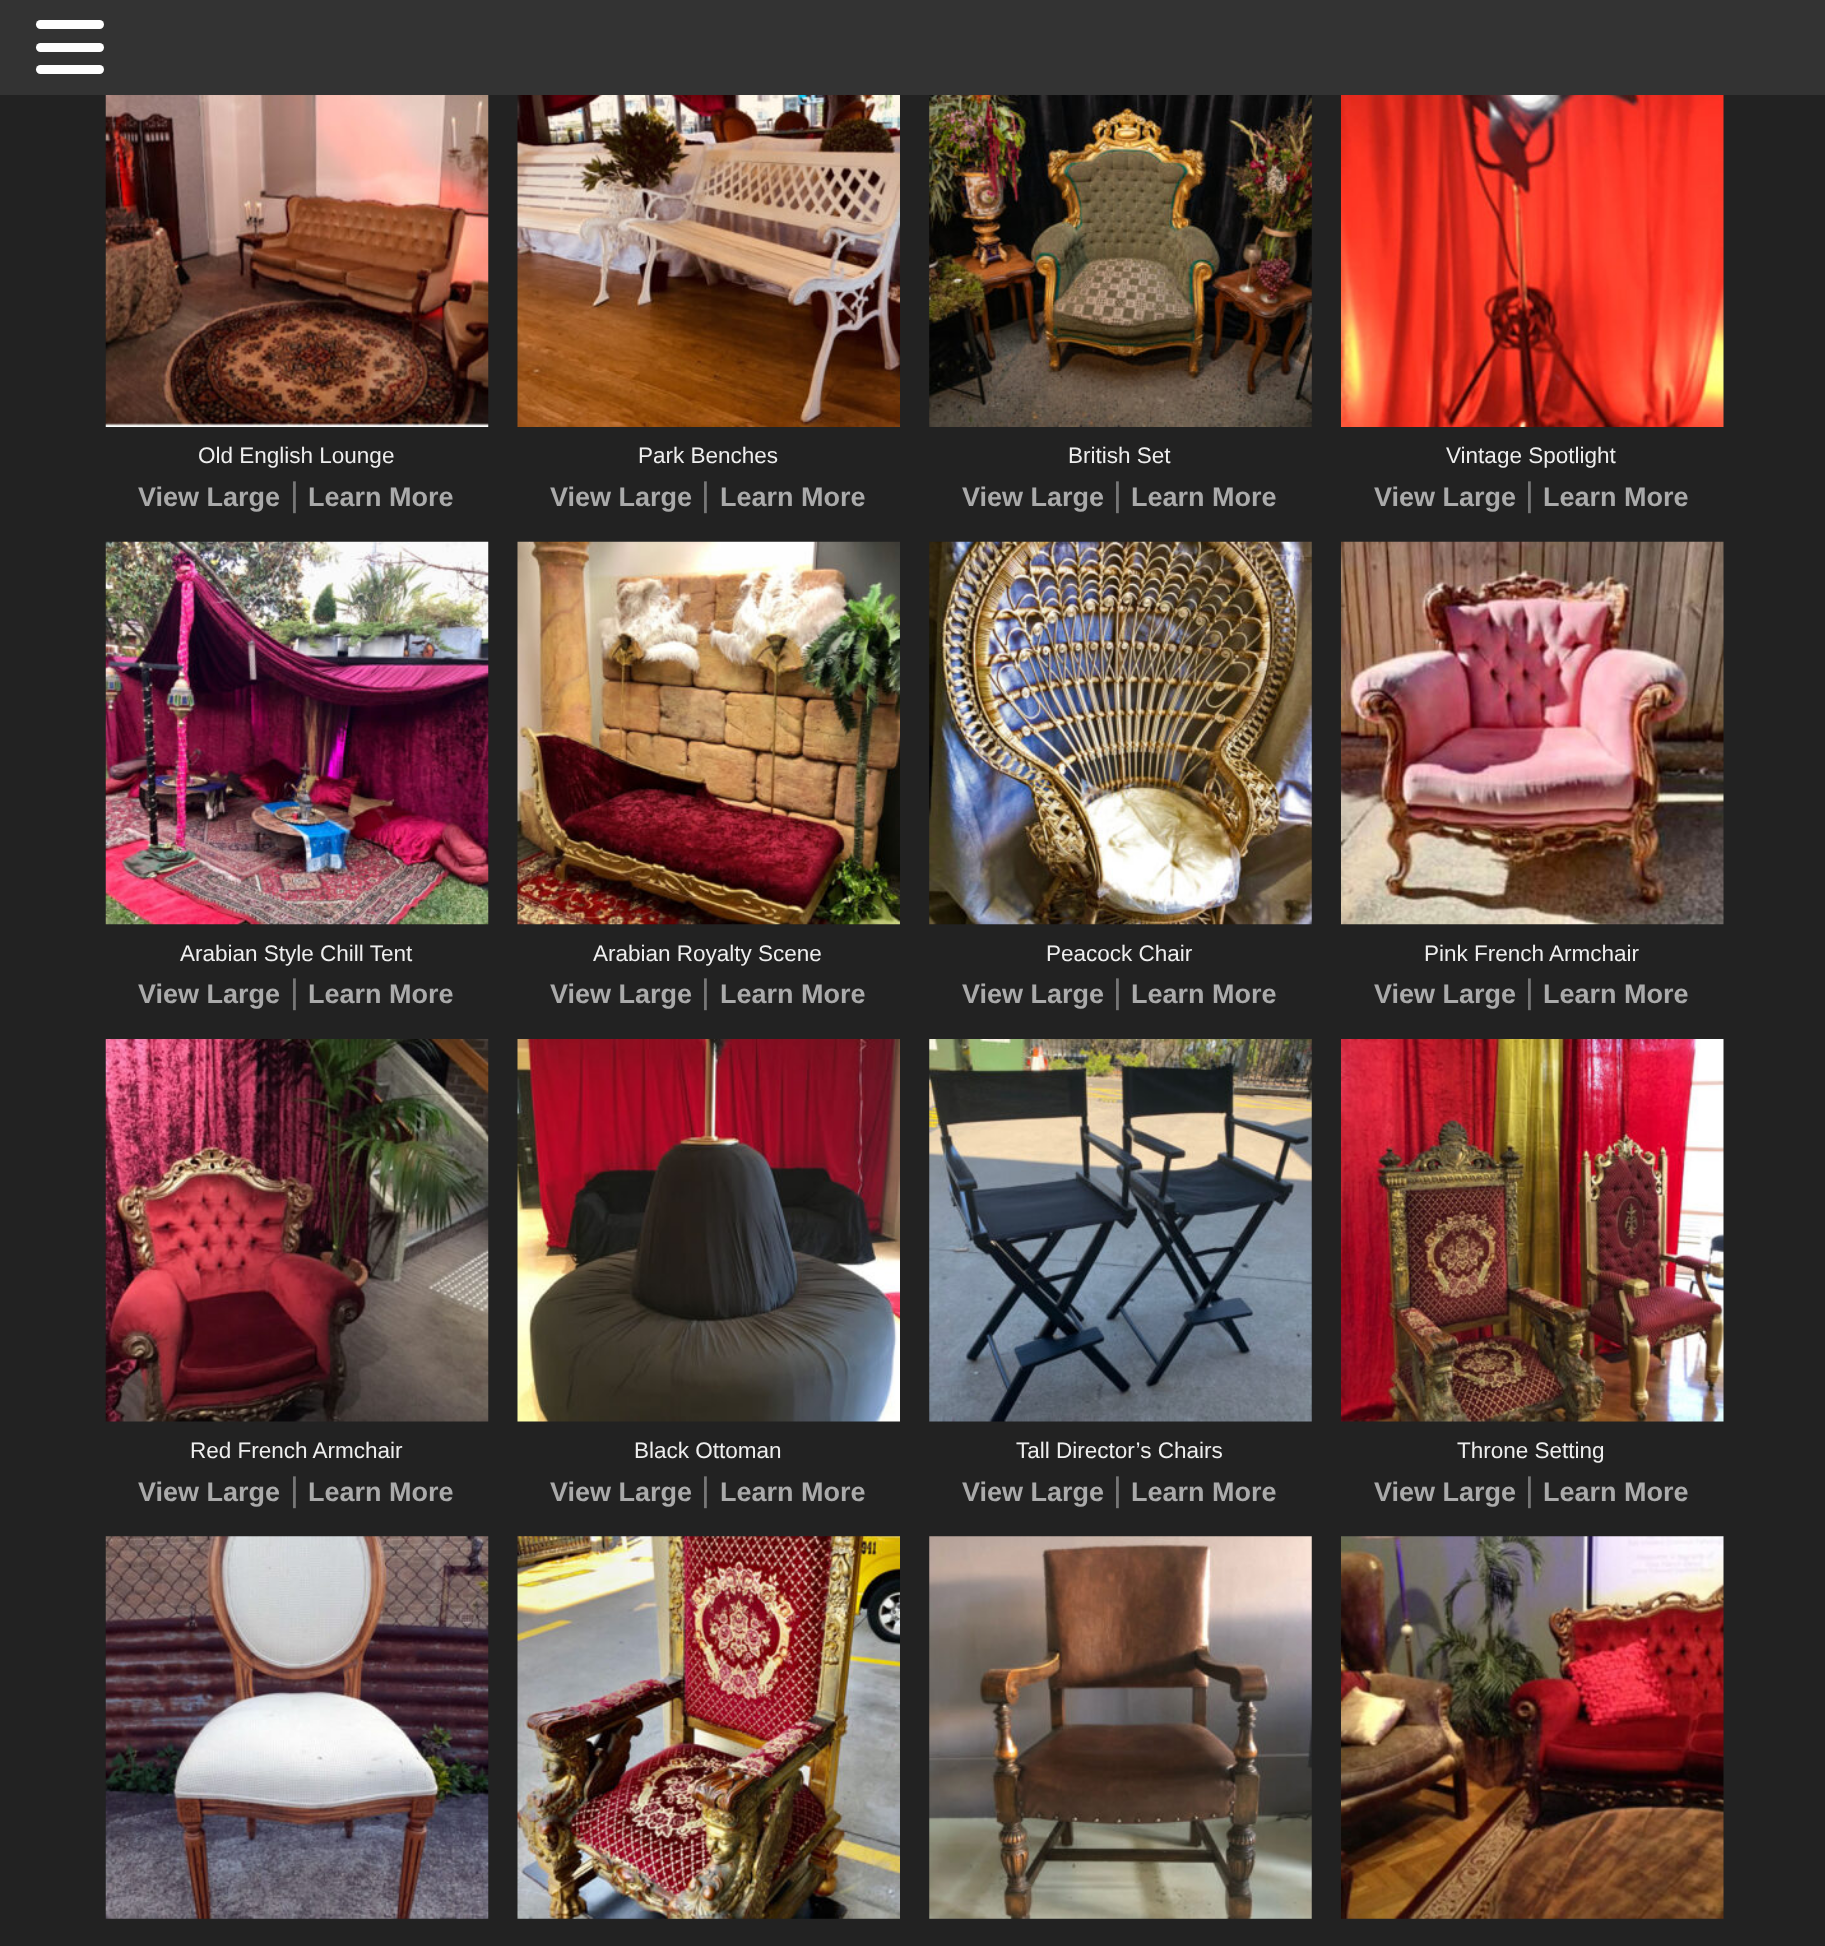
(async () => {
const canvas = document.querySelector("canvas")
canvas.width = 1825
canvas.height = 1946
const c = canvas.getContext("2d")
c.miterLimit = 4
c.fontKerning = "normal"
function T(s,x,y){c.fillText(s,x,y)}
function R(x,y,w,h){c.fillRect(x,y,w,h)}
function Q(x,y,w,h,r){c.beginPath();c.roundRect(x,y,w,h,r);c.fill()}
async function I(src,x,y,w,h){const img=new Image();img.src=src;await img.decode();c.drawImage(img,x,y,w,h)}
c.fillStyle="#222"
R(0,0,1825,1946)
c.fillStyle="#333"
R(0,0,1825,95)
c.fillStyle="#fff"
Q(36,20,68,9,4.5)
Q(36,43,68,9,4.5)
Q(36,65,68,9,4.5)
await I("1.png",105,95,384,332)
c.font="22.5px Liberation Sans"
c.fillStyle="#eee"
T("Old English Lounge",198,463)
c.font="bold 27px Liberation Sans"
c.fillStyle="#aaa"
T("View Large",138,506)
c.font="34px Liberation Sans"
c.fillStyle="#777"
T("|",290,506)
c.font="bold 27px Liberation Sans"
c.fillStyle="#aaa"
T("Learn More",308,506)
await I("2.png",517,95,383,332)
c.font="22.5px Liberation Sans"
c.fillStyle="#eee"
T("Park Benches",638,463)
c.font="bold 27px Liberation Sans"
c.fillStyle="#aaa"
T("View Large",550,506)
c.font="34px Liberation Sans"
c.fillStyle="#777"
T("|",701,506)
c.font="bold 27px Liberation Sans"
c.fillStyle="#aaa"
T("Learn More",720,506)
await I("3.png",929,95,383,332)
c.font="22.5px Liberation Sans"
c.fillStyle="#eee"
T("British Set",1068,463)
c.font="bold 27px Liberation Sans"
c.fillStyle="#aaa"
T("View Large",962,506)
c.font="34px Liberation Sans"
c.fillStyle="#777"
T("|",1113,506)
c.font="bold 27px Liberation Sans"
c.fillStyle="#aaa"
T("Learn More",1131,506)
await I("4.png",1341,95,383,332)
c.font="22.5px Liberation Sans"
c.fillStyle="#eee"
T("Vintage Spotlight",1446,463)
c.font="bold 27px Liberation Sans"
c.fillStyle="#aaa"
T("View Large",1374,506)
c.font="34px Liberation Sans"
c.fillStyle="#777"
T("|",1525,506)
c.font="bold 27px Liberation Sans"
c.fillStyle="#aaa"
T("Learn More",1543,506)
await I("5.png",105,541,384,384)
c.font="22.5px Liberation Sans"
c.fillStyle="#eee"
T("Arabian Style Chill Tent",180,961)
c.font="bold 27px Liberation Sans"
c.fillStyle="#aaa"
T("View Large",138,1003)
c.font="34px Liberation Sans"
c.fillStyle="#777"
T("|",290,1003)
c.font="bold 27px Liberation Sans"
c.fillStyle="#aaa"
T("Learn More",308,1003)
await I("6.png",517,541,383,384)
c.font="22.5px Liberation Sans"
c.fillStyle="#eee"
T("Arabian Royalty Scene",593,961)
c.font="bold 27px Liberation Sans"
c.fillStyle="#aaa"
T("View Large",550,1003)
c.font="34px Liberation Sans"
c.fillStyle="#777"
T("|",701,1003)
c.font="bold 27px Liberation Sans"
c.fillStyle="#aaa"
T("Learn More",720,1003)
await I("7.png",929,541,383,384)
c.font="22.5px Liberation Sans"
c.fillStyle="#eee"
T("Peacock Chair",1046,961)
c.font="bold 27px Liberation Sans"
c.fillStyle="#aaa"
T("View Large",962,1003)
c.font="34px Liberation Sans"
c.fillStyle="#777"
T("|",1113,1003)
c.font="bold 27px Liberation Sans"
c.fillStyle="#aaa"
T("Learn More",1131,1003)
await I("8.png",1341,541,383,384)
c.font="22.5px Liberation Sans"
c.fillStyle="#eee"
T("Pink French Armchair",1424,961)
c.font="bold 27px Liberation Sans"
c.fillStyle="#aaa"
T("View Large",1374,1003)
c.font="34px Liberation Sans"
c.fillStyle="#777"
T("|",1525,1003)
c.font="bold 27px Liberation Sans"
c.fillStyle="#aaa"
T("Learn More",1543,1003)
await I("9.png",105,1039,384,383)
c.font="22.5px Liberation Sans"
c.fillStyle="#eee"
T("Red French Armchair",190,1458)
c.font="bold 27px Liberation Sans"
c.fillStyle="#aaa"
T("View Large",138,1501)
c.font="34px Liberation Sans"
c.fillStyle="#777"
T("|",290,1501)
c.font="bold 27px Liberation Sans"
c.fillStyle="#aaa"
T("Learn More",308,1501)
await I("10.png",517,1039,383,383)
c.font="22.5px Liberation Sans"
c.fillStyle="#eee"
T("Black Ottoman",634,1458)
c.font="bold 27px Liberation Sans"
c.fillStyle="#aaa"
T("View Large",550,1501)
c.font="34px Liberation Sans"
c.fillStyle="#777"
T("|",701,1501)
c.font="bold 27px Liberation Sans"
c.fillStyle="#aaa"
T("Learn More",720,1501)
await I("11.png",929,1039,383,383)
c.font="22.5px Liberation Sans"
c.fillStyle="#eee"
T("Tall Director’s Chairs",1016,1458)
c.font="bold 27px Liberation Sans"
c.fillStyle="#aaa"
T("View Large",962,1501)
c.font="34px Liberation Sans"
c.fillStyle="#777"
T("|",1113,1501)
c.font="bold 27px Liberation Sans"
c.fillStyle="#aaa"
T("Learn More",1131,1501)
await I("12.png",1341,1039,383,383)
c.font="22.5px Liberation Sans"
c.fillStyle="#eee"
T("Throne Setting",1457,1458)
c.font="bold 27px Liberation Sans"
c.fillStyle="#aaa"
T("View Large",1374,1501)
c.font="34px Liberation Sans"
c.fillStyle="#777"
T("|",1525,1501)
c.font="bold 27px Liberation Sans"
c.fillStyle="#aaa"
T("Learn More",1543,1501)
await I("13.png",105,1536,384,383)
await I("14.png",517,1536,383,383)
await I("15.png",929,1536,383,383)
await I("16.png",1341,1536,383,383)
})()
